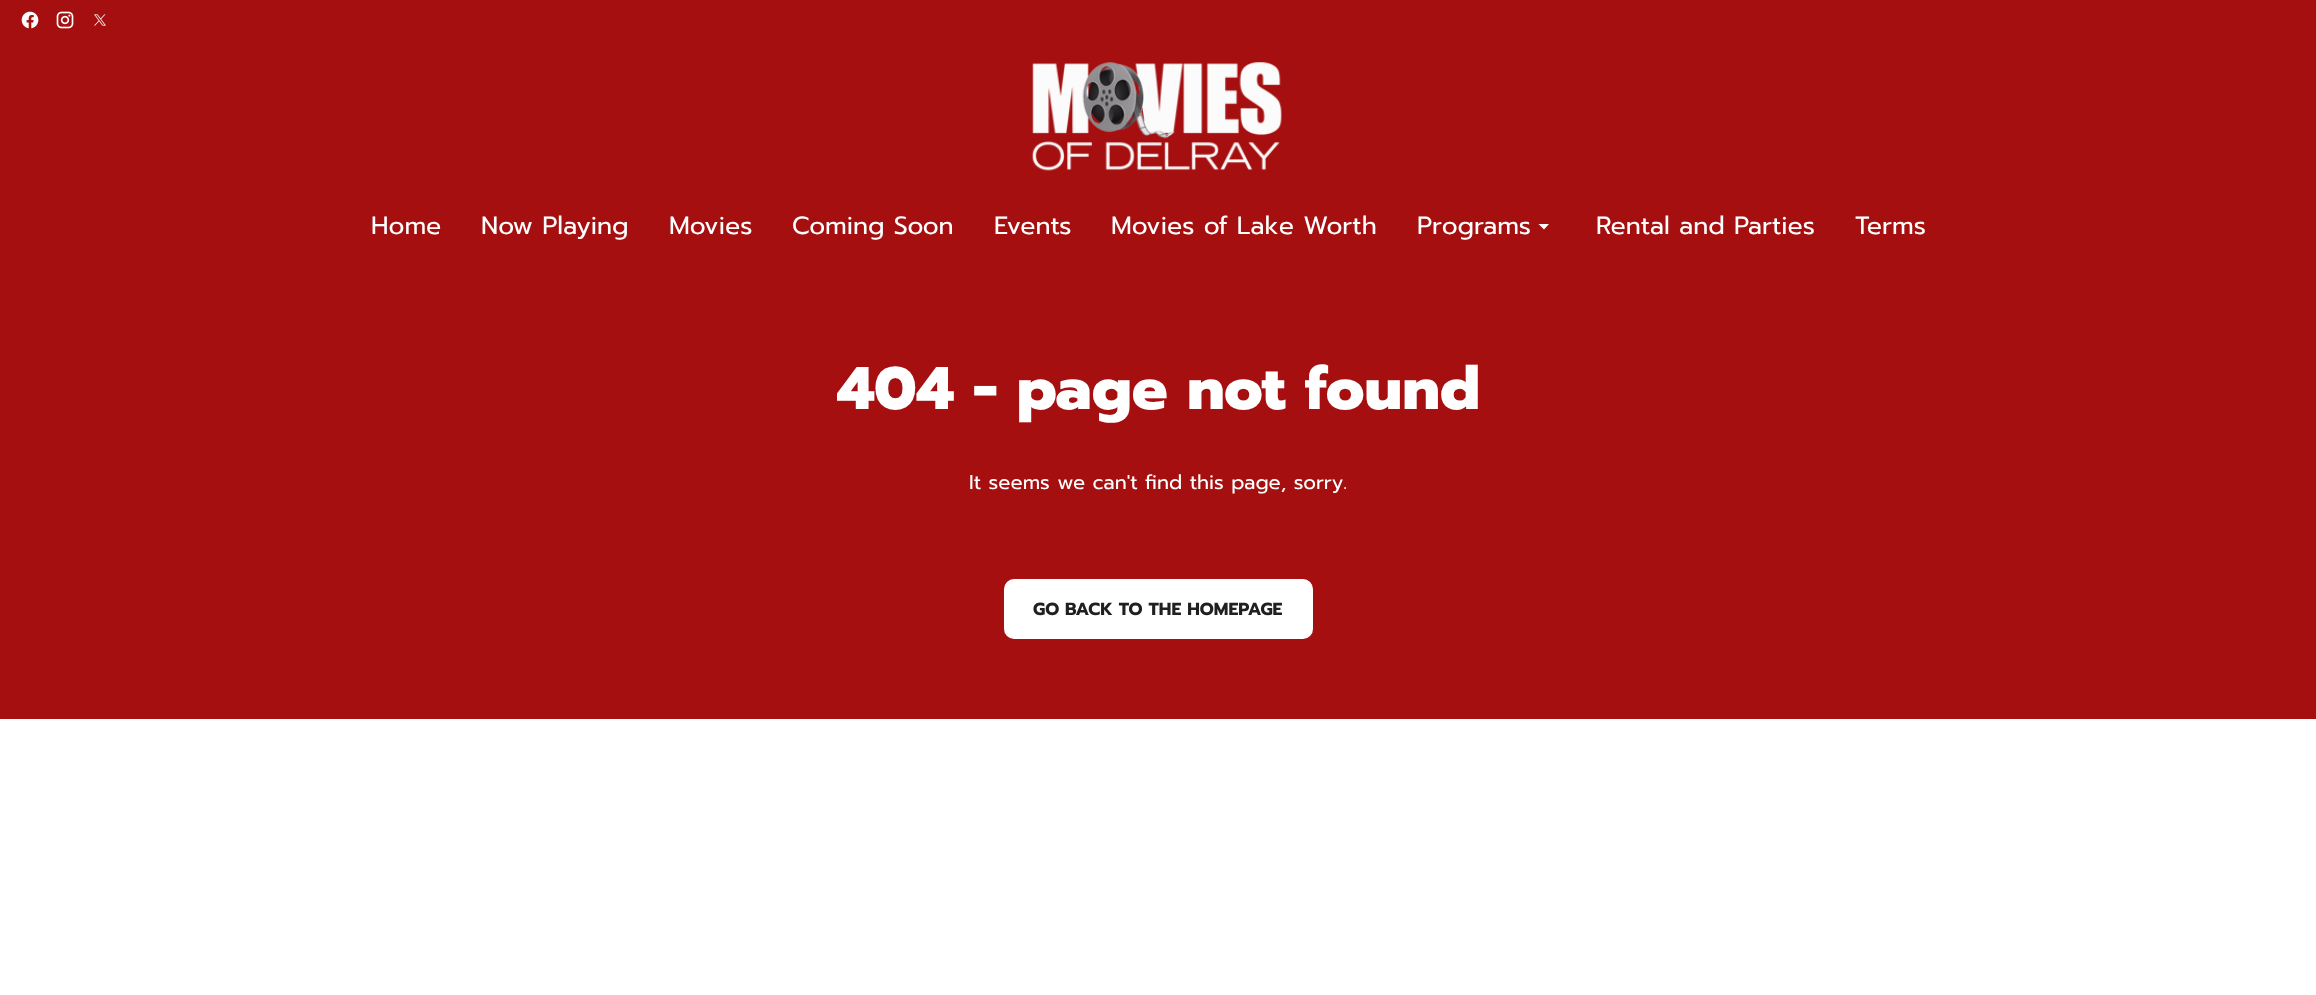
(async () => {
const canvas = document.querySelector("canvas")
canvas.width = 2316
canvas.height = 995
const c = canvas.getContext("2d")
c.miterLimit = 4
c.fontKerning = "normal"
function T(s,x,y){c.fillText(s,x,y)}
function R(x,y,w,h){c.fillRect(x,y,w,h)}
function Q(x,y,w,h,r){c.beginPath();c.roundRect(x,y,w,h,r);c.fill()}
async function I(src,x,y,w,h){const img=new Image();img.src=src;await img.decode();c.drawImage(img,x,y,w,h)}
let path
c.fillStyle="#a50f0f"
R(0,0,2316,995)
await I("1.png",21,11,18,18)
await I("2.png",56,11,18,18)
await I("3.png",94,14,12,12)
await I("4.png",1031,62,251,109)
c.font="25px Prompt"
c.fillStyle="#fff"
T("Home",371,234)
T("Now Playing",481,234)
T("Movies",669,234)
T("Coming Soon",792,234)
T("Events",994,234)
T("Movies of Lake Worth",1111,234)
T("Programs",1417,234)
path = new Path2D("M1538.5 224l5.5 5.5l5-5.5z")
c.fill(path)
T("Rental and Parties",1596,234)
T("Terms",1855,234)
c.font="800 60px Prompt"
T("404 - page not found",837,409)
c.font="20px Prompt"
T("It seems we can't find this page, sorry.",969,489)
Q(1004,579,309,60,10)
c.font="bold 17.5px Prompt"
c.fillStyle="#212020"
T("GO BACK TO THE HOMEPAGE",1033,615)
c.fillStyle="#fff"
R(0,719,2316,276)
})()
